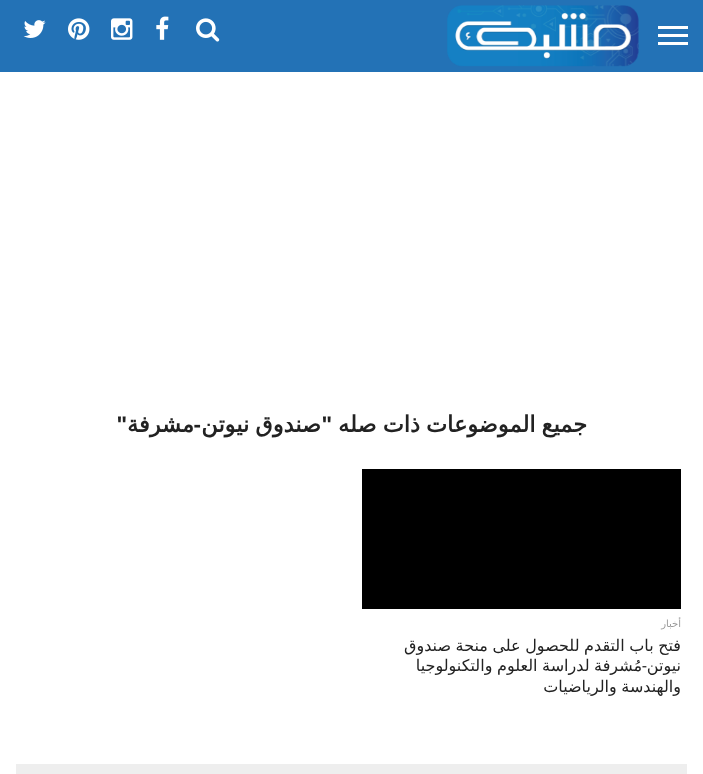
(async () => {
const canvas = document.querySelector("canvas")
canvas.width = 703
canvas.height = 774
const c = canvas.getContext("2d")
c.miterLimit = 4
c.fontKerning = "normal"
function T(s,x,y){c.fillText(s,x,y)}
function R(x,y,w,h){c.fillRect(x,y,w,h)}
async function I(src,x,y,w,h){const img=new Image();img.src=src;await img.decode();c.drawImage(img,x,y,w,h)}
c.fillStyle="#fff"
R(0,0,703,774)
c.fillStyle="#2372b6"
R(0,0,703,72)
c.fillStyle="#fff"
R(658,26,30,3)
R(658,34,30,3)
R(658,42,30,3)
await I("1.png",447,5,192,62)
await I("2.png",196,18,24,24)
await I("3.png",156,16,13,24)
await I("4.png",111,18,22,22)
await I("5.png",68,18,22,22)
await I("6.png",23,20,23,18)
c.wordSpacing="-1px"
c.direction="rtl"
c.font="bold 22.4px DejaVu Sans"
c.fillStyle="#222"
T("جميع الموضوعات ذات صله",587,432)
c.wordSpacing="0px"
c.font="bold 22.4px Liberation Sans"
T("\"",332,432)
c.wordSpacing="-1px"
c.font="bold 22.4px DejaVu Sans"
T("صندوق نيوتن",321,432)
c.wordSpacing="0px"
c.font="bold 22.4px Liberation Sans"
T("-",201,432)
c.font="bold 22.4px DejaVu Sans"
T("مشرفة",194,432)
c.font="bold 22.4px Liberation Sans"
T("\"",127,432)
c.fillStyle="#000"
R(362,469,319,140)
c.font="10px DejaVu Sans"
c.fillStyle="#999"
T("أخبار",681,627)
c.wordSpacing="-0.5px"
c.font="16px DejaVu Sans"
c.fillStyle="#222"
T("فتح باب التقدم للحصول على منحة صندوق",681,651)
c.wordSpacing="0px"
T("نيوتن",681,671)
c.font="16px Liberation Sans"
T("-",647,671)
c.wordSpacing="-0.5px"
c.font="16px DejaVu Sans"
T("مُشرفة لدراسة العلوم والتكنولوجيا",642,671)
T("والهندسة والرياضيات",681,692)
c.fillStyle="#eee"
R(16,764,671,10)
})()
